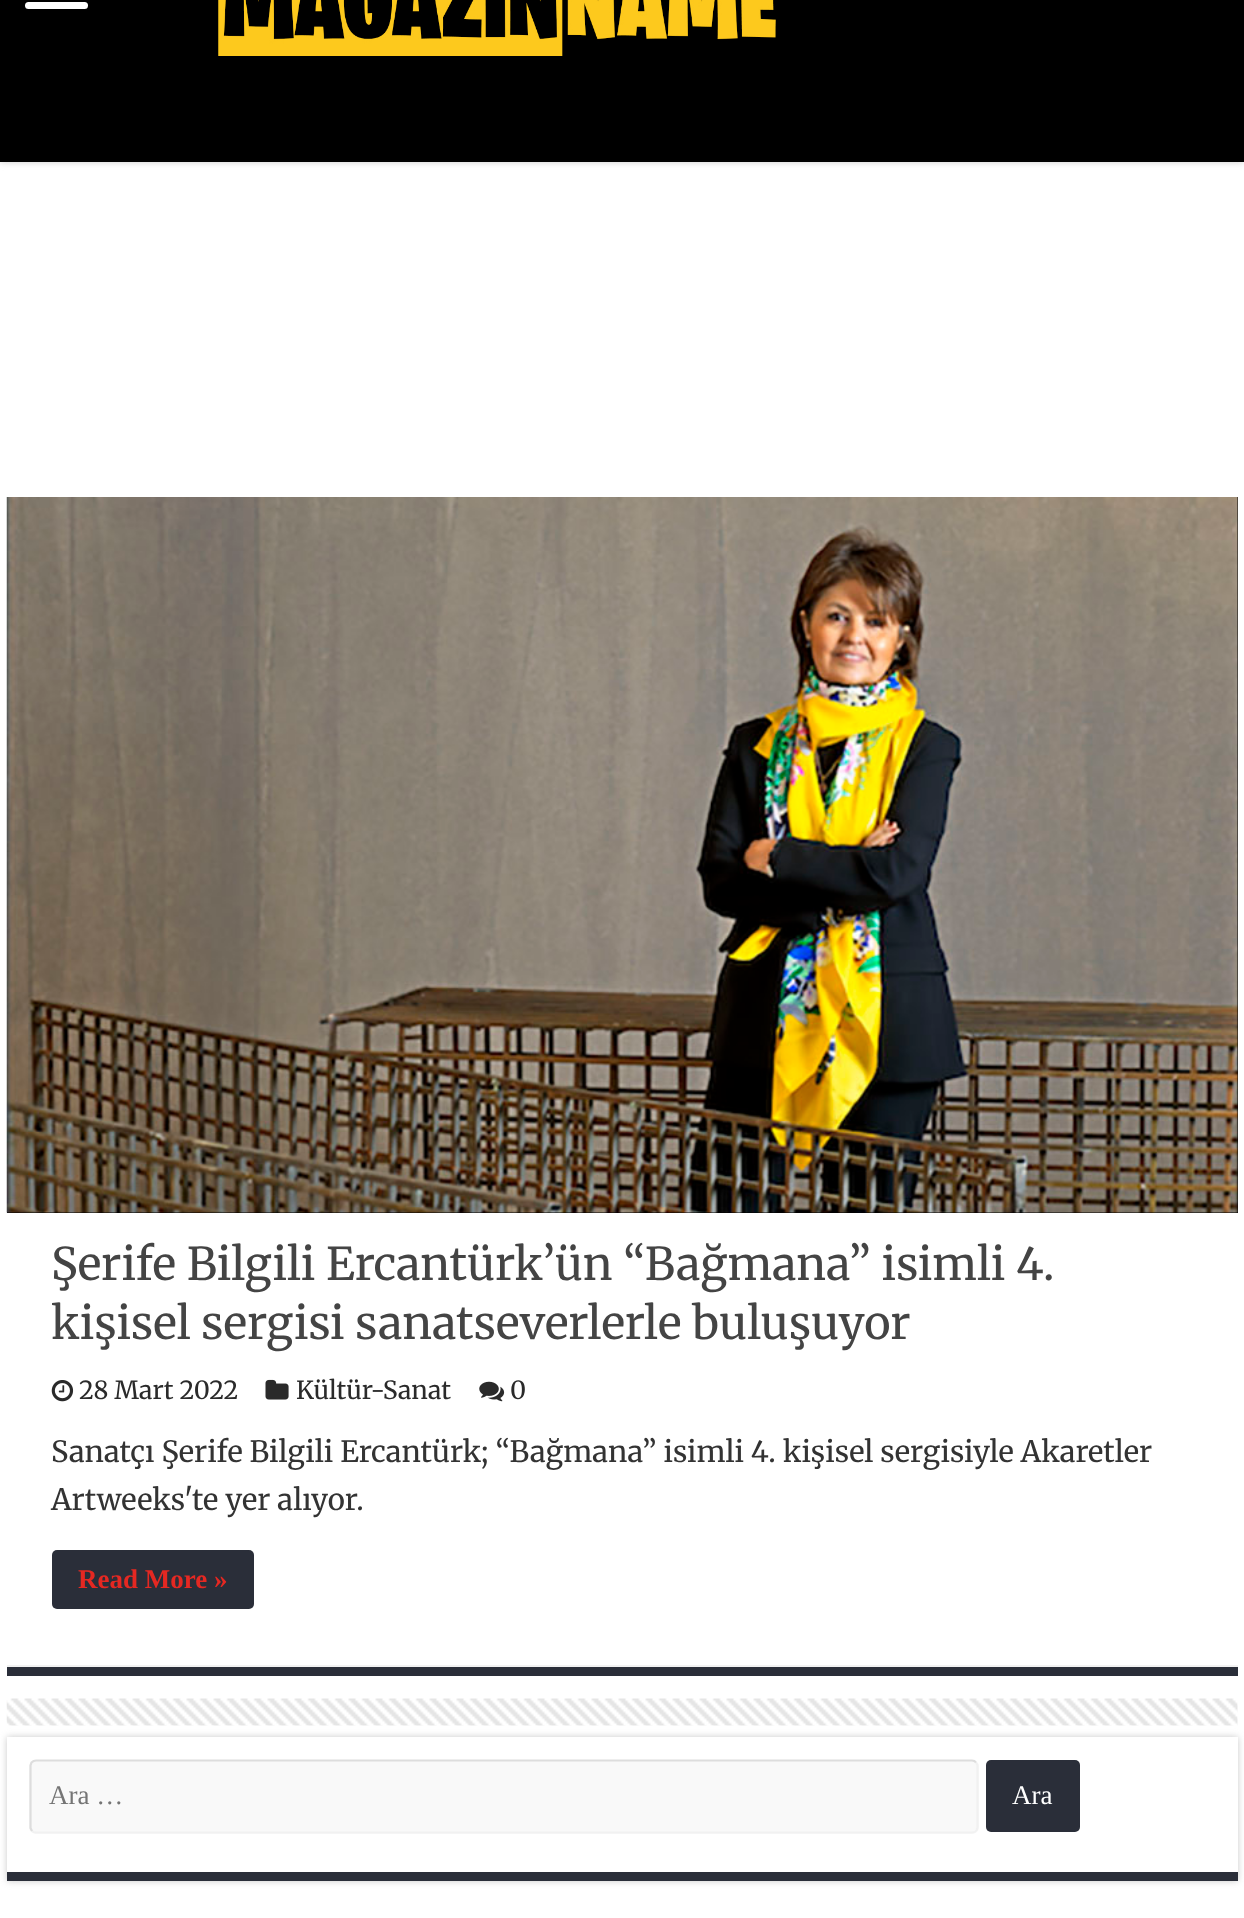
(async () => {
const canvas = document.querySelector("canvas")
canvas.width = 1244
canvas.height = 1918
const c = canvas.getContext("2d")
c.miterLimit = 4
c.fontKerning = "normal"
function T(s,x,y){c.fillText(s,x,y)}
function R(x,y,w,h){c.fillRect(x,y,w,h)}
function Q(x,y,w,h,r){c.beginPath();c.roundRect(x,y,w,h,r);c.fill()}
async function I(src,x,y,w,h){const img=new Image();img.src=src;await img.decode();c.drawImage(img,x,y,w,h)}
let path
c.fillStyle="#fff"
R(0,0,1244,1918)
c.fillStyle="#cacaca"
c.filter="blur(3.5px)"
c.beginPath()
c.rect(0,-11,1244,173)
c.fill()
c.filter="none"
c.fillStyle="#000"
R(0,0,1244,162)
c.fillStyle="#fff"
Q(25,2,63,7,3.5)
await I("1.png",218,0,558,56)
c.fillStyle="#2a2e39"
R(7,1667,1231,9)
c.fillStyle="#f2f2f2"
R(7,1665,1231,2)
c.fillStyle="#000"
R(7,497,1231,716)
await I("2.png",6,497,1232,716)
c.font="45px Merriweather"
c.fillStyle="#444"
T("Şerife Bilgili Ercantürk’ün “Bağmana” isimli 4.",51,1280)
T("kişisel sergisi sanatseverlerle buluşuyor",51,1339)
await I("3.png",51,1380,23,22)
c.font="25px Merriweather"
c.fillStyle="#2a2a2a"
T("28 Mart 2022",79,1399)
await I("4.png",265,1379,24,21)
T("Kültür-Sanat",296,1399)
await I("5.png",479,1381,26,21)
T("0",510,1399)
c.font="29.25px Merriweather"
c.fillStyle="#333"
T("Sanatçı Şerife Bilgili Ercantürk; “Bağmana” isimli 4. kişisel sergisiyle Akaretler",51,1462)
T("Artweeks'te yer alıyor.",51,1510)
c.fillStyle="#2a2e39"
Q(52,1550,202,59,5)
c.font="bold 27px Liberation Serif"
c.fillStyle="#e52822"
T("Read More »",78,1588)
c.fillStyle="#cacaca"
c.filter="blur(3.5px)"
c.beginPath()
c.rect(7,1737,1231,144)
c.fill()
c.filter="none"
await I("6.png",6,1698,1232,28)
c.fillStyle="#fff"
R(7,1737,1231,135)
c.fillStyle="#2a2e39"
R(7,1872,1231,9)
c.fillStyle="#f9f9f9"
Q(29,1760,950,74,7)
path = new Path2D("M976 1762.5l1.5 2.5v62.5l-1 3c-1 1.5-3 2-4.5 2h-936c-1.5 0-3-.5-4-1.5")
c.strokeStyle="#f1f1f1"
c.lineWidth=2.2
c.stroke(path)
path = new Path2D("M32 1831l-1.5-3v-62.5l1-3c1-1 3-2 4.5-2h936c1.5 0 3 .5 4 2")
c.strokeStyle="#ddd"
c.stroke(path)
c.font="27px Liberation Serif"
c.fillStyle="#757575"
T("Ara …",49,1804)
c.fillStyle="#2a2e39"
Q(986,1760,94,72,5)
c.fillStyle="#fff"
T("Ara",1012,1804)
})()
